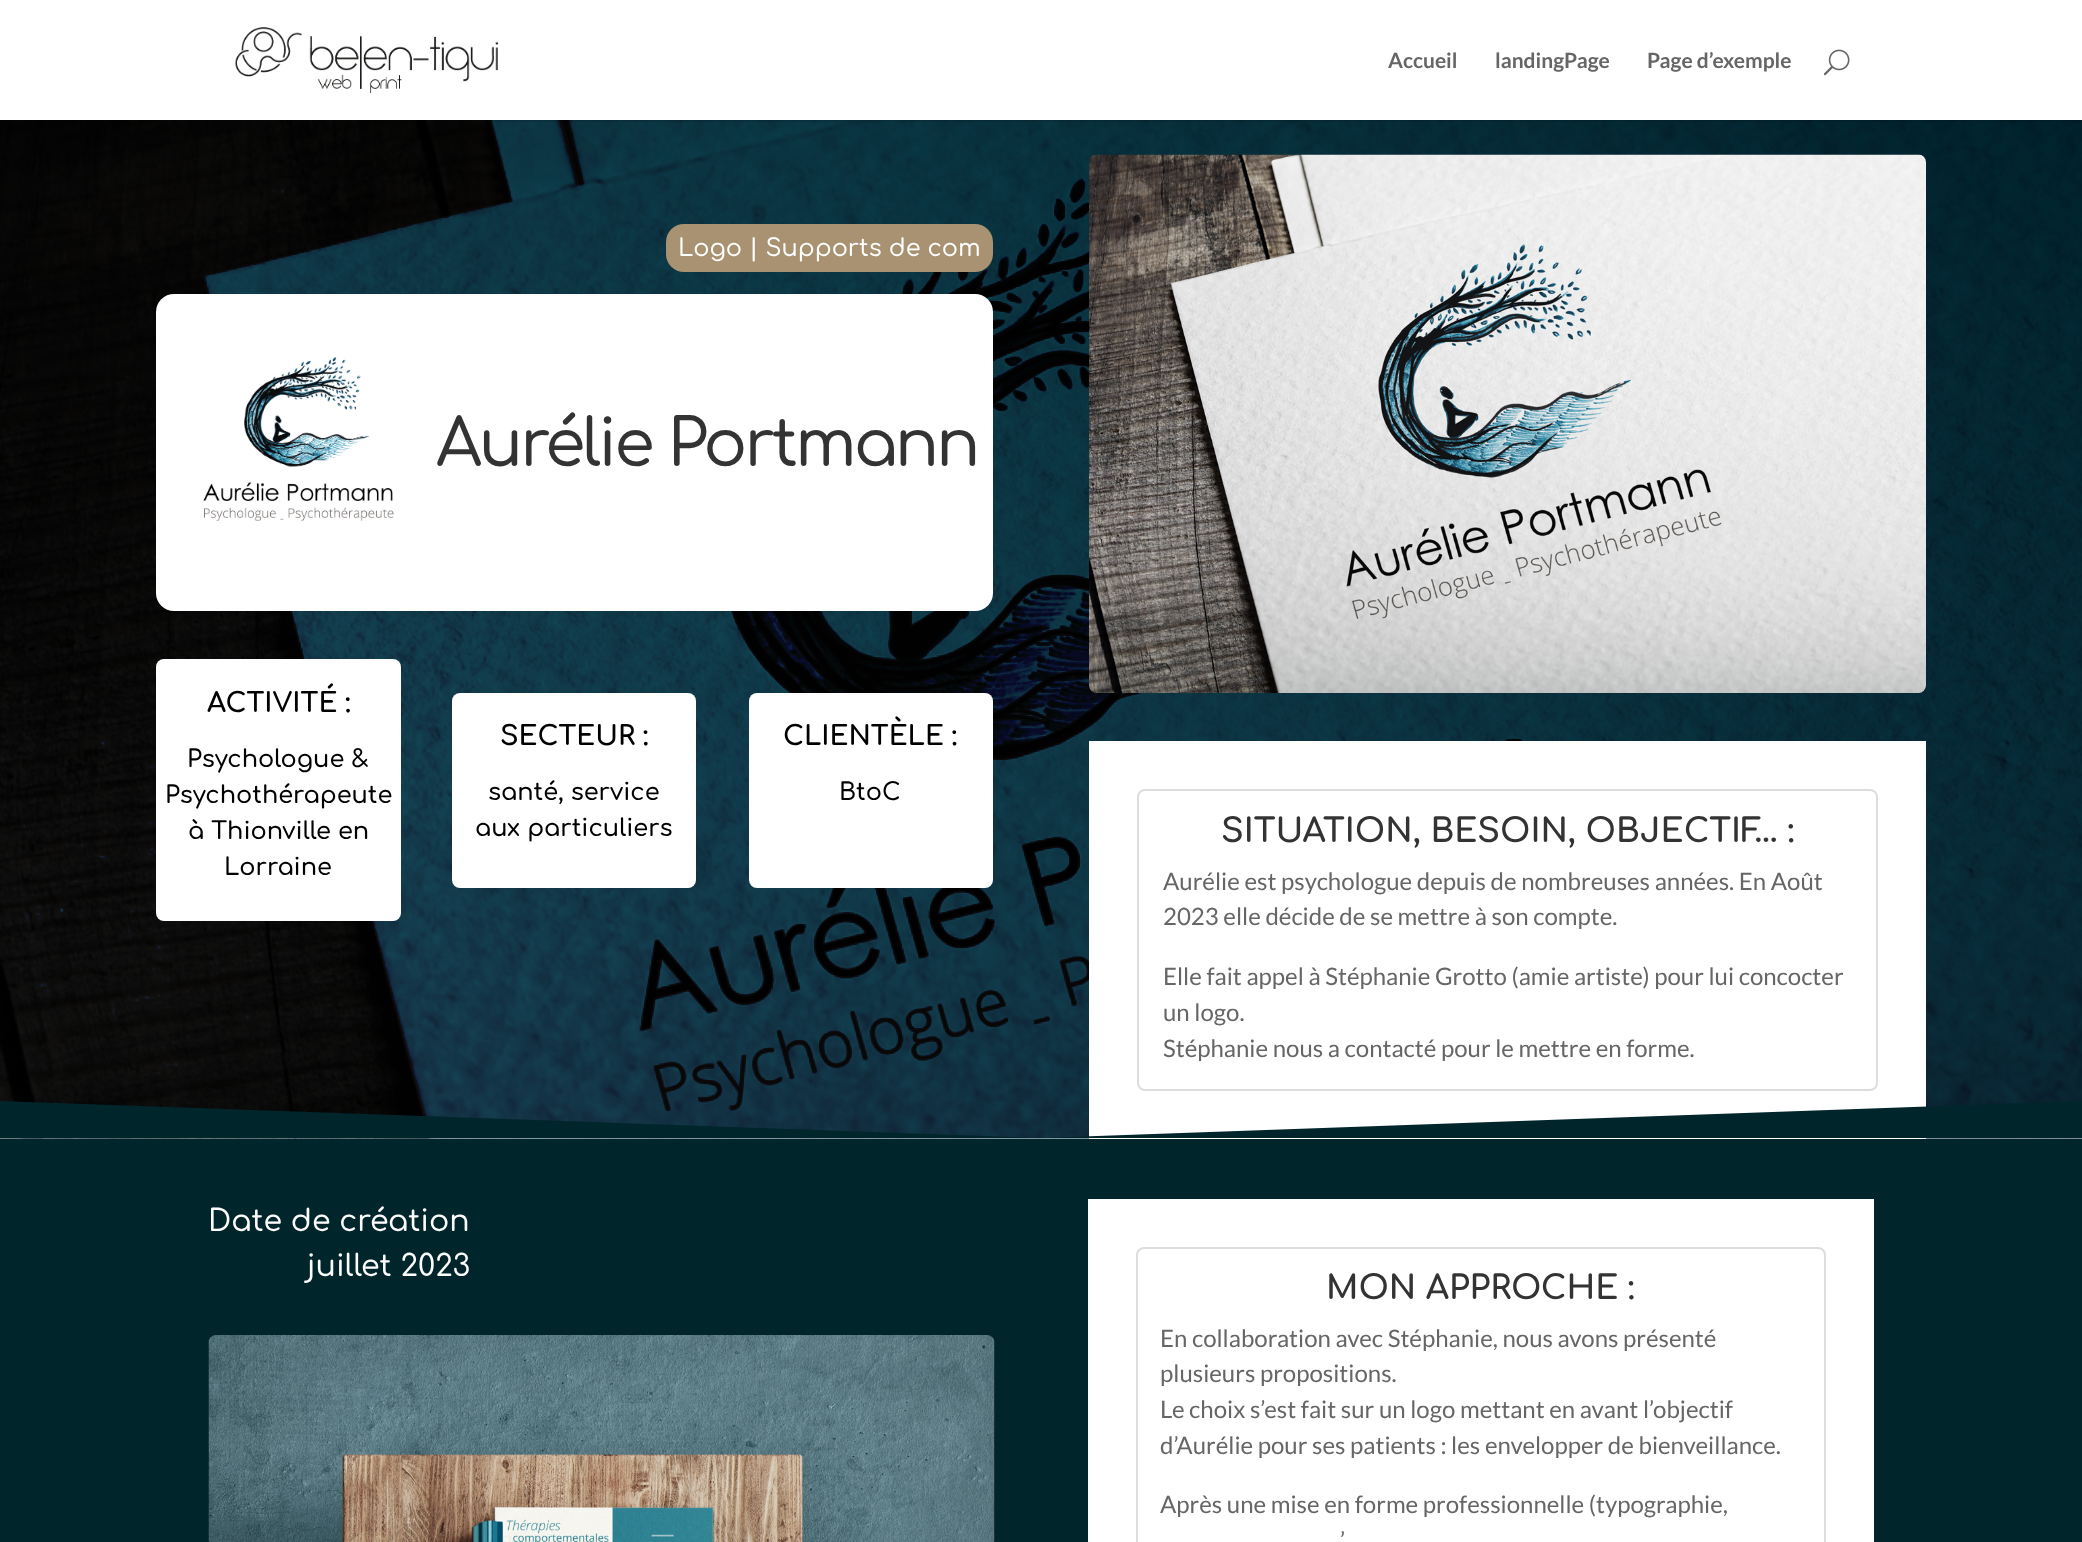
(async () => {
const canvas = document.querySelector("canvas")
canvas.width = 2082
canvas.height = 1542
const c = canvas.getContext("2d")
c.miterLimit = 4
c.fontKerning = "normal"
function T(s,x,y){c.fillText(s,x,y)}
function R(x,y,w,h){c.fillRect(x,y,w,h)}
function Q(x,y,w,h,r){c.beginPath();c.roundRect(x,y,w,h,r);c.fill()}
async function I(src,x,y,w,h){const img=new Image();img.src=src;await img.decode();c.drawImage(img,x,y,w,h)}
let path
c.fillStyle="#fff"
R(0,0,2082,1542)
await I("3.png",0,120,2082,1019)
c.fillStyle="#0000001a"
R(491,120,1591,2)
await I("1.png",235,27,263,66)
c.font="bold 21px Lato"
c.fillStyle="#666"
T("Accueil",1388,68)
T("landingPage",1495,68)
T("Page d’exemple",1647,68)
await I("2.png",1823,49,27,27)
c.fillStyle="#a89272"
Q(666,224,327,48,18)
c.font="500 24px Comfortaa"
c.fillStyle="#fff"
T("Logo | Supports de com",678,256)
Q(156,294,837,317,18)
await I("4.png",203,357,191,164)
c.letterSpacing="-3px"
c.font="500 65.25px Comfortaa"
c.fillStyle="#333"
T("Aurélie Portmann",436,466)
c.fillStyle="#fff"
Q(156,659,245,262,8)
c.letterSpacing="0px"
c.font="bold 27px Comfortaa"
c.fillStyle="#000"
T("ACTIVITÉ :",207,712)
c.font="600 24px Comfortaa"
T("Psychologue &",187,767)
T("Psychothérapeute",165,803)
T("à Thionville en",188,839)
T("Lorraine",224,875)
c.fillStyle="#fff"
Q(452,693,244,195,8)
c.font="bold 27px Comfortaa"
c.fillStyle="#000"
T("SECTEUR :",500,745)
c.font="600 24px Comfortaa"
T("santé, service",488,800)
T("aux particuliers",475,836)
c.fillStyle="#fff"
Q(749,693,244,195,8)
c.font="bold 27px Comfortaa"
c.fillStyle="#000"
T("CLIENTÈLE :",783,745)
c.font="600 24px Comfortaa"
T("BtoC",839,800)
c.save()
c.beginPath()
c.rect(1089,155,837,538)
c.clip()
c.fillStyle="#0000004d"
c.filter="blur(13.5px)"
c.beginPath()
c.rect(1098,182,819,520)
c.fill()
c.filter="none"
c.restore()
await I("5.png",1089,154,837,539)
c.fillStyle="#fff"
R(1089,741,837,398)
c.beginPath()
c.roundRect(1138,790,739,300,7)
c.strokeStyle="#ddd"
c.lineWidth=2
c.stroke()
c.font="bold 33px Comfortaa"
c.fillStyle="#333"
T("SITUATION, BESOIN, OBJECTIF… :",1221,842)
c.font="24px Lato"
c.fillStyle="#666"
T("Aurélie est psychologue depuis de nombreuses années. En Août",1163,890)
T("2023 elle décide de se mettre à son compte.",1163,925)
T("Elle fait appel à Stéphanie Grotto (amie artiste) pour lui concocter",1163,985)
T("un logo.",1163,1021)
T("Stéphanie nous a contacté pour le mettre en forme.",1163,1057)
c.fillStyle="#00262b"
path = new Path2D("M1041 1138l-1041-37v37h2082v-37z")
c.fill(path)
R(0,1139,2082,403)
c.font="500 30px Comfortaa"
c.fillStyle="#fff"
T("Date de création",208,1231)
T("juillet 2023",307,1276)
c.save()
c.beginPath()
c.rect(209,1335,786,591)
c.clip()
c.fillStyle="#0000008f"
c.filter="blur(13.5px)"
c.beginPath()
c.rect(218,1362,768,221)
c.fill()
c.filter="none"
c.restore()
await I("6.png",208,1335,787,207)
R(1088,1199,786,343)
c.beginPath()
c.roundRect(1137,1248,688,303,7)
c.stroke()
c.font="bold 33px Comfortaa"
c.fillStyle="#333"
T("MON APPROCHE :",1326,1299)
c.font="24px Lato"
c.fillStyle="#666"
T("En collaboration avec Stéphanie, nous avons présenté",1160,1347)
T("plusieurs propositions.",1160,1382)
T("Le choix s’est fait sur un logo mettant en avant l’objectif",1160,1418)
T("d’Aurélie pour ses patients : les envelopper de bienveillance.",1160,1454)
T("Après une mise en forme professionnelle (typographie,",1160,1513)
T("’",1340,1549)
})()
